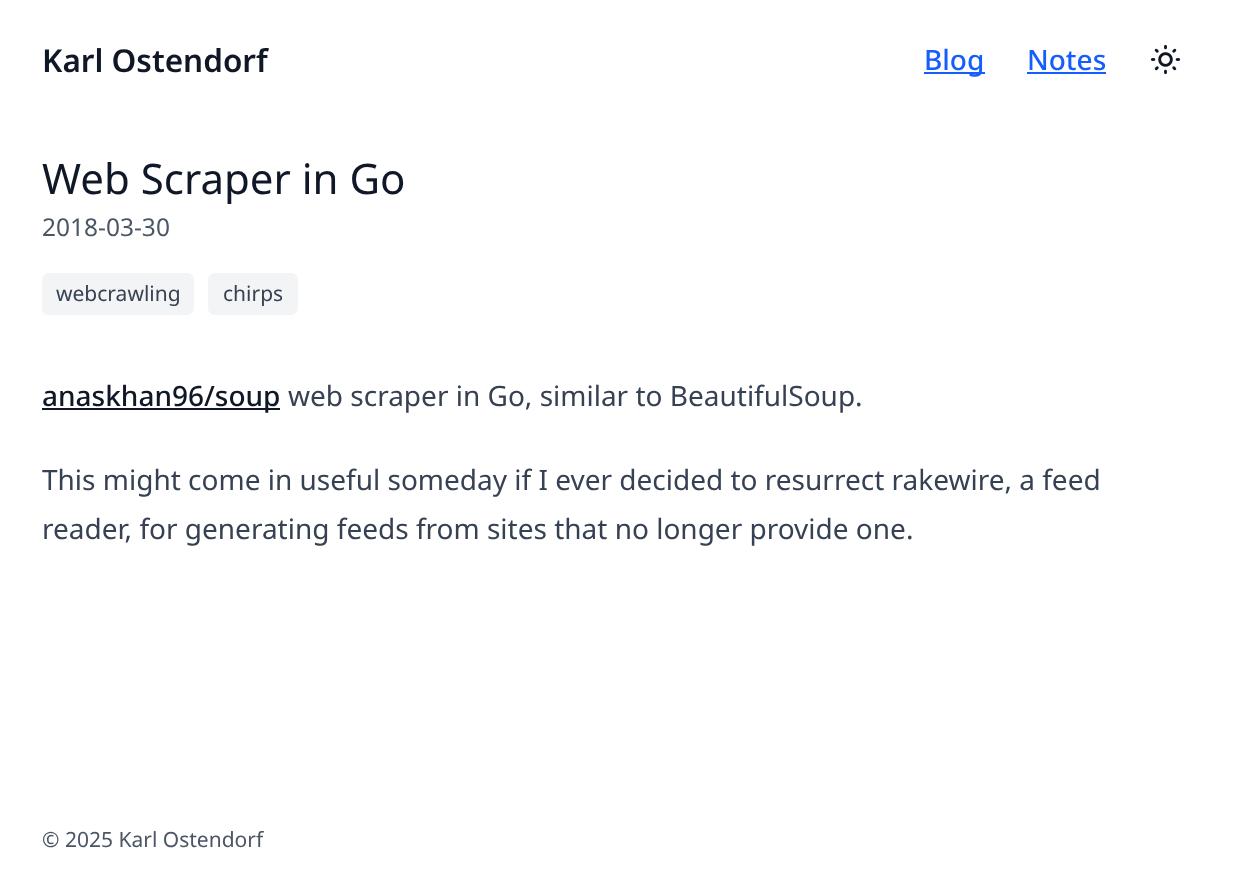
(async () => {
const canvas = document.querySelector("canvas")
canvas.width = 1238
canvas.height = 895
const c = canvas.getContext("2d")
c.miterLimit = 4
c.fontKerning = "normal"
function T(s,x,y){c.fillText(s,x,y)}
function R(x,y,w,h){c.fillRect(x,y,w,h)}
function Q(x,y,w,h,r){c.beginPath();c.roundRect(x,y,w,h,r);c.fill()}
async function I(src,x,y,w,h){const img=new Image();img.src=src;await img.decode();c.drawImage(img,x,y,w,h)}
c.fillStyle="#fff"
R(0,0,1238,895)
c.font="600 31.5px Noto Sans"
c.fillStyle="#101828"
T("Karl Ostendorf",42,72)
c.fillStyle="#155dfc"
R(924,72,61,2)
c.font="500 28px Noto Sans"
T("Blog",924,70)
T("Notes",1027,70)
R(1027,72,79,2)
await I("1.png",1150,44,31,31)
c.font="42px Noto Sans"
c.fillStyle="#101828"
T("Web Scraper in Go",42,194)
c.font="24.5px Noto Sans"
c.fillStyle="#4a5565"
T("2018-03-30",42,236)
c.fillStyle="#f3f4f6"
Q(42,273,152,42,7)
c.font="21px Noto Sans"
c.fillStyle="#364153"
T("webcrawling",56,301)
c.fillStyle="#f3f4f6"
Q(208,273,90,42,7)
c.fillStyle="#364153"
T("chirps",223,301)
c.fillStyle="#101828"
R(42,408,238,2)
c.font="500 28px Noto Sans"
T("anaskhan96/soup",42,406)
c.font="28px Noto Sans"
c.fillStyle="#364153"
T("web scraper in Go, similar to BeautifulSoup.",288,406)
T("This might come in useful someday if I ever decided to resurrect rakewire, a feed",42,490)
T("reader, for generating feeds from sites that no longer provide one.",42,539)
c.font="21px Noto Sans"
c.fillStyle="#4a5565"
T("© 2025 Karl Ostendorf",42,847)
})()
